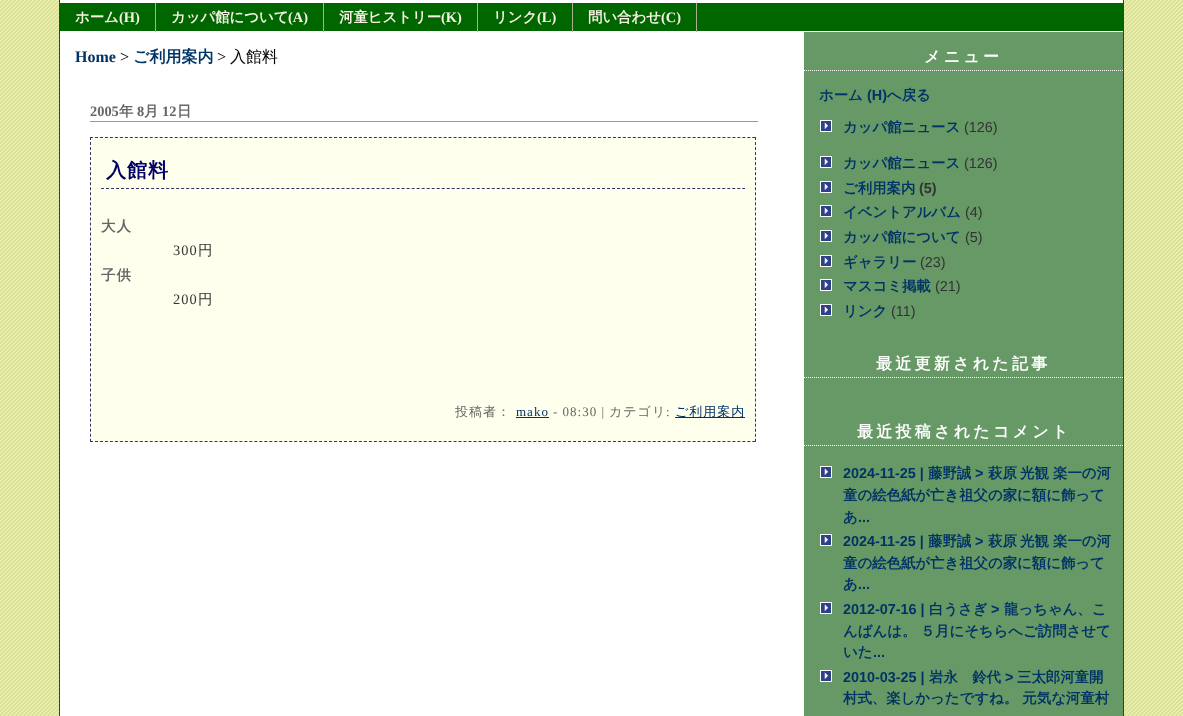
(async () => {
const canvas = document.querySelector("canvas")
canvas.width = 1183
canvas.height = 716
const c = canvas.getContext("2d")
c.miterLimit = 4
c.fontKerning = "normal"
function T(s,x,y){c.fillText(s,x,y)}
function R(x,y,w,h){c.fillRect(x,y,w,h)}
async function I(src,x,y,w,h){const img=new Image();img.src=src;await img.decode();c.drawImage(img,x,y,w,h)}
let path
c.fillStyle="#fff"
R(0,0,1183,716)
await I("1.png",0,0,1183,716)
R(60,0,1063,716)
c.fillStyle="#060"
R(1123,0,1,716)
R(59,0,1,716)
R(60,3,1063,28)
c.fillStyle="#a8b090"
R(155,3,1,29)
c.font="bold 14.4px WenQuanYi Zen Hei"
c.fillStyle="#f8f2e5"
T("ホーム",75,22)
c.font="bold 14.4px Liberation Serif"
T("(H)",119,22)
c.fillStyle="#a8b090"
R(323,3,1,29)
c.font="bold 14.4px WenQuanYi Zen Hei"
c.fillStyle="#f8f2e5"
T("カッパ館について",171,22)
c.font="bold 14.4px Liberation Serif"
T("(A)",288,22)
c.fillStyle="#a8b090"
R(477,3,1,29)
c.font="bold 14.4px WenQuanYi Zen Hei"
c.fillStyle="#f8f2e5"
T("河童ヒストリー",339,22)
c.font="bold 14.4px Liberation Serif"
T("(K)",441,22)
c.fillStyle="#a8b090"
R(572,3,1,29)
c.font="bold 14.4px WenQuanYi Zen Hei"
c.fillStyle="#f8f2e5"
T("リンク",493,22)
c.font="bold 14.4px Liberation Serif"
T("(L)",537,22)
c.fillStyle="#a8b090"
R(696,3,1,29)
c.font="bold 14.4px WenQuanYi Zen Hei"
c.fillStyle="#f8f2e5"
T("問い合わせ",588,22)
c.font="bold 14.4px Liberation Serif"
T("(C)",661,22)
c.font="bold 16px Liberation Serif"
c.fillStyle="#036"
T("Home",75,62)
c.font="16px Liberation Serif"
c.fillStyle="#000"
T(">",120,62)
c.font="bold 16px WenQuanYi Zen Hei"
c.fillStyle="#036"
T("ご利用案内",133,62)
c.font="16px Liberation Serif"
c.fillStyle="#000"
T(">",217,62)
c.font="500 16px WenQuanYi Zen Hei"
T("入館料",230,62)
c.fillStyle="#999"
R(90,121,668,1)
c.font="bold 14.4px Liberation Serif"
c.fillStyle="#666"
T("2005",90,116)
c.font="bold 14.4px WenQuanYi Zen Hei"
T("年",119,116)
c.font="bold 14.4px Liberation Serif"
T("8",137,116)
c.font="bold 14.4px WenQuanYi Zen Hei"
T("月",144,116)
c.font="bold 14.4px Liberation Serif"
T("12",162,116)
c.font="bold 14.4px WenQuanYi Zen Hei"
T("日",177,116)
c.fillStyle="#ffe"
R(90,137,666,305)
path = new Path2D("M90 137.5h666")
c.strokeStyle="#336"
c.setLineDash([3,1.98])
c.stroke(path)
path = new Path2D("M755.5 137v305")
c.setLineDash([3,2.03])
c.stroke(path)
path = new Path2D("M90 441.5h666")
c.setLineDash([3,1.98])
c.stroke(path)
path = new Path2D("M90.5 137v305")
c.setLineDash([3,2.03])
c.stroke(path)
path = new Path2D("M101 188.5h644")
c.setLineDash([3,2.01])
c.stroke(path)
c.letterSpacing="1px"
c.font="bold 20px WenQuanYi Zen Hei"
c.fillStyle="#006"
T("入館料",106,177)
c.font="bold 14.4px WenQuanYi Zen Hei"
c.fillStyle="#666"
T("大人",101,231)
c.font="14.4px Liberation Serif"
c.fillStyle="#333"
T("300",173,255)
c.font="500 14.4px WenQuanYi Zen Hei"
T("円",198,255)
c.font="bold 14.4px WenQuanYi Zen Hei"
c.fillStyle="#666"
T("子供",101,280)
c.font="14.4px Liberation Serif"
c.fillStyle="#333"
T("200",173,304)
c.font="500 14.4px WenQuanYi Zen Hei"
T("円",198,304)
c.font="500 13px WenQuanYi Zen Hei"
c.fillStyle="#666"
T("投稿者：",455,416)
c.font="13px Liberation Serif"
c.fillStyle="#036"
T("mako",516,416)
R(516,417,33,1)
c.fillStyle="#666"
T("- 08:30 |",553,416)
c.font="500 13px WenQuanYi Zen Hei"
T("カテゴリ",609,416)
c.font="13px Liberation Serif"
T(":",666,416)
c.fillStyle="#036"
R(675,417,70,1)
c.font="500 13px WenQuanYi Zen Hei"
T("ご利用案内",675,416)
c.fillStyle="#696"
R(804,32,319,684)
path = new Path2D("M804 70.5h319")
c.strokeStyle="#fff"
c.setLineDash([1,1])
c.stroke(path)
c.letterSpacing="3.25px"
c.font="bold 16px WenQuanYi Zen Hei"
c.fillStyle="#fff"
T("メニュー",924,62)
c.letterSpacing="0px"
c.font="bold 14.4px WenQuanYi Zen Hei"
c.fillStyle="#036"
T("ホーム",819,100)
c.font="bold 14.4px Liberation Sans"
T("(H)",867,100)
c.font="bold 14.4px WenQuanYi Zen Hei"
T("へ戻る",887,100)
await I("2.png",820,120,12,12)
T("カッパ館ニュース",843,132)
c.font="14.4px Liberation Sans"
c.fillStyle="#333"
T("(126)",964,132)
await I("2.png",820,156,12,12)
c.font="bold 14.4px WenQuanYi Zen Hei"
c.fillStyle="#036"
T("カッパ館ニュース",843,168)
c.font="14.4px Liberation Sans"
c.fillStyle="#333"
T("(126)",964,168)
await I("2.png",820,181,12,12)
c.font="bold 14.4px WenQuanYi Zen Hei"
c.fillStyle="#036"
T("ご利用案内",843,193)
c.font="bold 14.4px Liberation Sans"
c.fillStyle="#333"
T("(5)",919,193)
await I("2.png",820,205,12,12)
c.font="bold 14.4px WenQuanYi Zen Hei"
c.fillStyle="#036"
T("イベントアルバム",843,217)
c.font="14.4px Liberation Sans"
c.fillStyle="#333"
T("(4)",965,217)
await I("2.png",820,230,12,12)
c.font="bold 14.4px WenQuanYi Zen Hei"
c.fillStyle="#036"
T("カッパ館について",843,242)
c.font="14.4px Liberation Sans"
c.fillStyle="#333"
T("(5)",965,242)
await I("2.png",820,255,12,12)
c.font="bold 14.4px WenQuanYi Zen Hei"
c.fillStyle="#036"
T("ギャラリー",843,267)
c.font="14.4px Liberation Sans"
c.fillStyle="#333"
T("(23)",920,267)
await I("2.png",820,279,12,12)
c.font="bold 14.4px WenQuanYi Zen Hei"
c.fillStyle="#036"
T("マスコミ掲載",843,291)
c.font="14.4px Liberation Sans"
c.fillStyle="#333"
T("(21)",935,291)
await I("2.png",820,304,12,12)
c.font="bold 14.4px WenQuanYi Zen Hei"
c.fillStyle="#036"
T("リンク",843,316)
c.font="14.4px Liberation Sans"
c.fillStyle="#333"
T("(11)",891,316)
path = new Path2D("M804 377.5h319")
c.stroke(path)
c.letterSpacing="3.25px"
c.font="bold 16px WenQuanYi Zen Hei"
c.fillStyle="#fff"
T("最近更新された記事",876,369)
path = new Path2D("M804 445.5h319")
c.stroke(path)
T("最近投稿されたコメント",857,437)
await I("2.png",820,466,12,12)
c.letterSpacing="0px"
c.font="bold 14.4px Liberation Sans"
c.fillStyle="#036"
T("2024-11-25 |",843,478)
c.font="bold 14.4px WenQuanYi Zen Hei"
T("藤野誠",928,478)
c.font="bold 14.4px Liberation Sans"
T(">",975,478)
c.font="bold 14.4px WenQuanYi Zen Hei"
T("萩原",988,478)
T("光観",1020,478)
T("楽一の河",1053,478)
T("童の絵色紙が亡き祖父の家に額に飾って",843,500)
T("あ",843,522)
c.font="bold 14.4px Liberation Sans"
T("...",858,522)
await I("2.png",820,534,12,12)
T("2024-11-25 |",843,546)
c.font="bold 14.4px WenQuanYi Zen Hei"
T("藤野誠",928,546)
c.font="bold 14.4px Liberation Sans"
T(">",975,546)
c.font="bold 14.4px WenQuanYi Zen Hei"
T("萩原",988,546)
T("光観",1020,546)
T("楽一の河",1053,546)
T("童の絵色紙が亡き祖父の家に額に飾って",843,568)
T("あ",843,589)
c.font="bold 14.4px Liberation Sans"
T("...",858,589)
await I("2.png",820,602,12,12)
T("2012-07-16 |",843,614)
c.font="bold 14.4px WenQuanYi Zen Hei"
T("白うさぎ",929,614)
c.font="bold 14.4px Liberation Sans"
T(">",991,614)
c.font="bold 14.4px WenQuanYi Zen Hei"
T("龍っちゃん、こ",1004,614)
T("んばんは。 ５月にそちらへご訪問させて",843,636)
T("いた",843,657)
c.font="bold 14.4px Liberation Sans"
T("...",873,657)
await I("2.png",820,670,12,12)
T("2010-03-25 |",843,682)
c.font="bold 14.4px WenQuanYi Zen Hei"
T("岩永　鈴代",929,682)
c.font="bold 14.4px Liberation Sans"
T(">",1005,682)
c.font="bold 14.4px WenQuanYi Zen Hei"
T("三太郎河童開",1017,682)
T("村式、楽しかったですね。 元気な河童村",843,703)
})()
